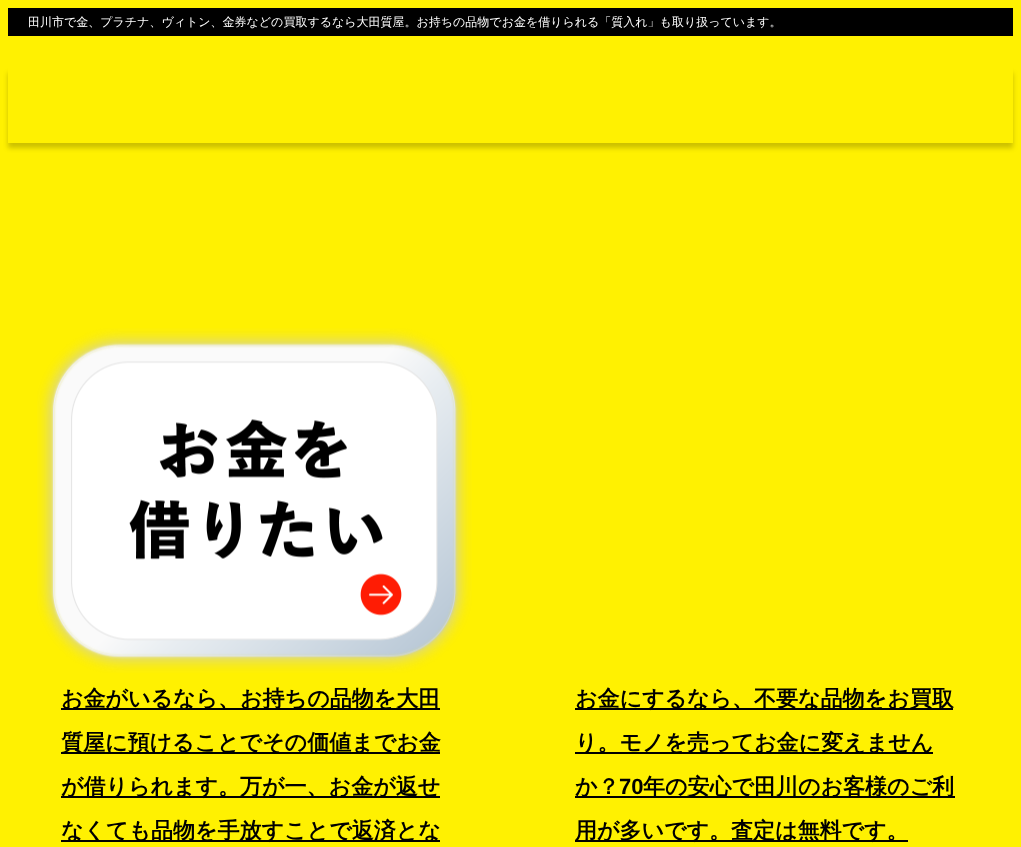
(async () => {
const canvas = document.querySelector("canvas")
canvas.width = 1021
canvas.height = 847
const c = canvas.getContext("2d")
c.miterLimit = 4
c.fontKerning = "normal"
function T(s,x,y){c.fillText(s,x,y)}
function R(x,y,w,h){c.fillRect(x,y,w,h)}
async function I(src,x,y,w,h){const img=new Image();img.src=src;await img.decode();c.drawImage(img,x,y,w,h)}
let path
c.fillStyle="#fff101"
R(0,0,1021,847)
c.fillStyle="#000"
R(8,8,1005,28)
c.font="500 12px WenQuanYi Zen Hei"
c.fillStyle="#fff"
T("田川市で金、プラチナ、ヴィトン、金券などの買取するなら大田質屋。お持ちの品物でお金を借りられる「質入れ」も取り扱っています。",28,26)
c.save()
path = new Path2D("M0 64h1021v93h-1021zm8 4h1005v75h-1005z")
c.clip(path,"evenodd")
c.fillStyle="#00000033"
c.filter="blur(2.5px)"
c.beginPath()
c.rect(8,73,1005,75)
c.fill()
c.filter="none"
c.restore()
await I("1.png",37,328,435,345)
c.fillStyle="#000"
R(61,708,379,2)
c.font="bold 22px WenQuanYi Zen Hei"
T("お金がいるなら、お持ちの品物を大田",61,706)
R(61,752,379,2)
T("質屋に預けることでその価値までお金",61,750)
R(61,796,379,2)
T("が借りられます。万が一、お金が返せ",61,794)
R(61,840,379,2)
T("なくても品物を手放すことで返済とな",61,838)
R(575,708,378,2)
T("お金にするなら、不要な品物をお買取",575,706)
R(575,752,358,2)
T("り。モノを売ってお金に変えません",575,750)
R(575,796,380,2)
T("か？",575,794)
c.font="bold 22px Liberation Sans"
T("70",619,794)
c.font="bold 22px WenQuanYi Zen Hei"
T("年の安心で田川のお客様のご利",643,794)
R(575,840,333,2)
T("用が多いです。査定は無料です。",575,838)
})()
